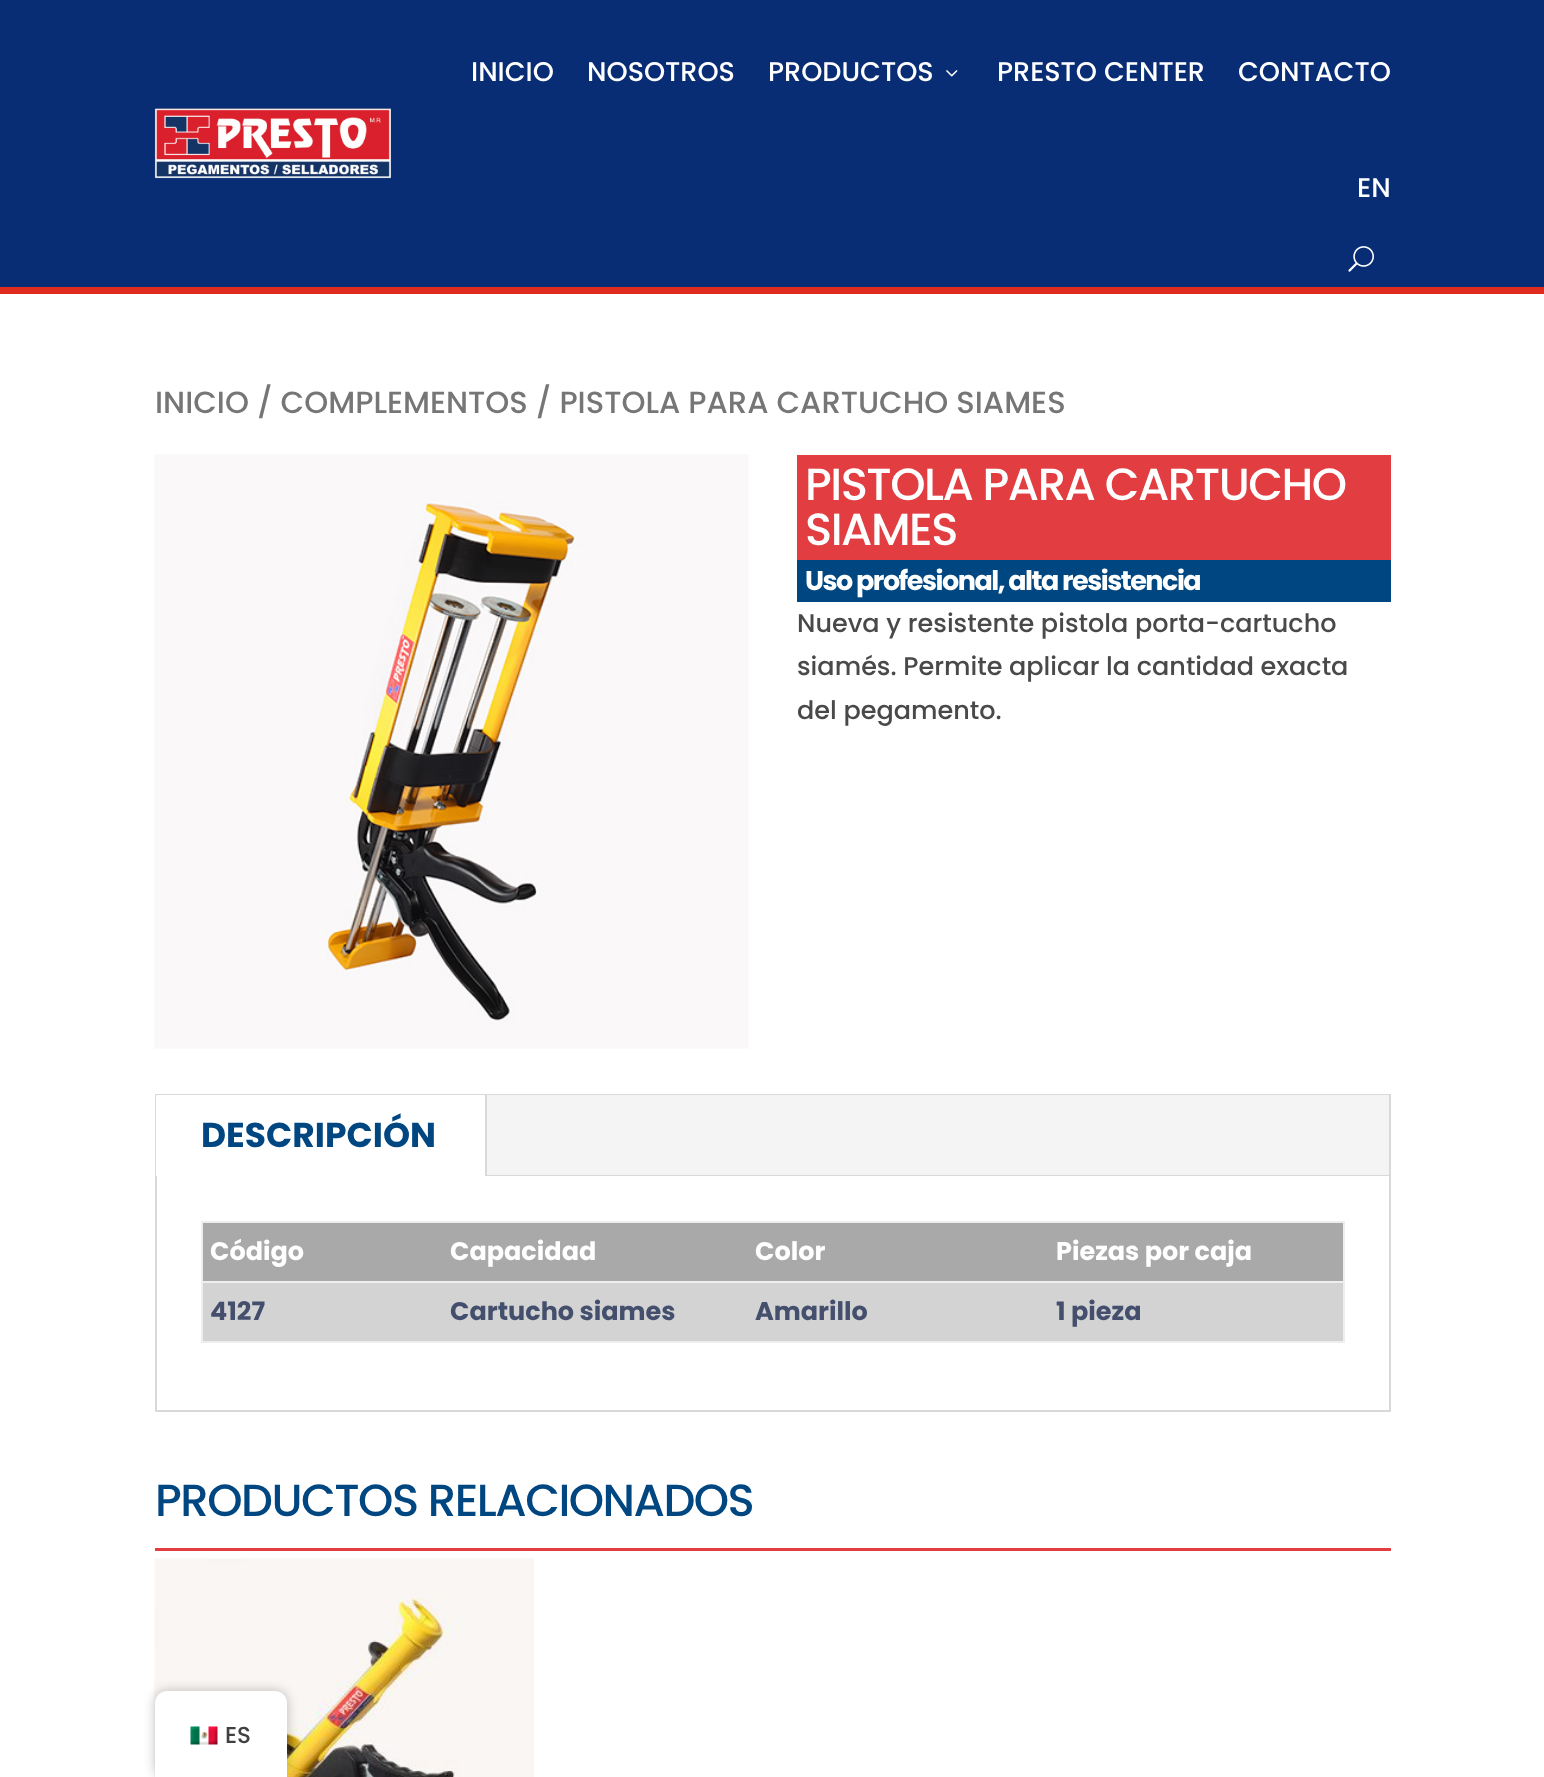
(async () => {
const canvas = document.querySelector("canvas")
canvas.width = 1544
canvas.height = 1777
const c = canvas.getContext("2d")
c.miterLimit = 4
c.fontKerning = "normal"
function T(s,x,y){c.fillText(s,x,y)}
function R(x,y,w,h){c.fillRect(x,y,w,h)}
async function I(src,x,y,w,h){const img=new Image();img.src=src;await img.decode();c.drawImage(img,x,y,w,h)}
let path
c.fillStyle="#fff"
R(0,0,1544,1777)
c.fillStyle="#082d74"
R(0,0,1544,287)
c.fillStyle="#e02b20"
R(0,287,1544,7)
await I("1.png",154,108,238,71)
c.font="500 27px Poppins"
c.fillStyle="#fff"
T("INICIO",471,81)
T("NOSOTROS",587,81)
T("PRODUCTOS",768,81)
await I("2.png",946,70,12,7)
T("PRESTO CENTER",997,81)
T("CONTACTO",1238,81)
T("EN",1357,197)
await I("3.png",1348,246,26,26)
c.font="500 30.6px Poppins"
c.fillStyle="#767676"
T("INICIO / COMPLEMENTOS / PISTOLA PARA CARTUCHO SIAMES",155,413)
await I("4.png",154,454,595,595)
c.fillStyle="#e23d40"
R(797,455,594,105)
c.letterSpacing="-1.5px"
c.font="500 45px Poppins"
c.fillStyle="#fff"
T("PISTOLA PARA CARTUCHO",805,500)
T("SIAMES",805,545)
c.fillStyle="#004681"
R(797,560,594,42)
c.font="bold 27px Poppins"
c.fillStyle="#fff"
T("Uso profesional, alta resistencia",805,590)
c.letterSpacing="0px"
c.font="500 25.5px Poppins"
c.fillStyle="#494949"
T("Nueva y resistente pistola porta-cartucho",797,632)
T("siamés. Permite aplicar la cantidad exacta",797,675)
T("del pegamento.",797,719)
c.strokeStyle="#d9d9d9"
c.lineWidth=2
c.strokeRect(156,1095,1234,316)
c.fillStyle="#f4f4f4"
R(487,1095,902,80)
c.fillStyle="#fff"
R(156,1095,329,81)
c.fillStyle="#d9d9d9"
R(485,1095,2,81)
c.font="bold 34.5px Poppins"
c.fillStyle="#004681"
T("DESCRIPCIÓN",201,1147)
c.fillStyle="#d9d9d9"
R(487,1175,902,1)
c.fillStyle="#eee"
R(201,1221,1143,2)
R(1343,1221,2,122)
R(201,1341,1143,2)
R(201,1221,2,122)
c.fillStyle="#a9a9a9"
R(203,1223,1140,58)
c.font="bold 25.5px Poppins"
c.fillStyle="#fff"
T("Código",210,1260)
T("Capacidad",450,1260)
T("Color",755,1260)
T("Piezas por caja",1056,1260)
c.fillStyle="#d3d3d3"
R(203,1283,1140,58)
c.fillStyle="#434f6d"
T("4127",210,1320)
T("Cartucho siames",450,1320)
T("Amarillo",755,1320)
c.fillStyle="#eee"
R(201,1281,1143,2)
c.fillStyle="#434f6d"
T("1 pieza",1056,1320)
c.fillStyle="#e23d40"
R(155,1548,1236,3)
c.letterSpacing="-1.5px"
c.font="500 45px Poppins"
c.fillStyle="#004681"
T("PRODUCTOS RELACIONADOS",155,1516)
await I("5.png",154,1558,380,219)
c.fillStyle="#00000040"
c.filter="blur(6px)"
c.beginPath()
c.roundRect(155,1691,132,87,12)
c.fill()
c.filter="none"
c.fillStyle="#fff"
path = new Path2D("M167 1691h108c6.5 0 12 5.5 12 12v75h-132v-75c0-6.5 5.5-12 12-12z")
c.fill(path)
await I("6.png",190,1726,28,19)
c.letterSpacing="0px"
c.font="500 23px Poppins"
c.fillStyle="#404040"
T("ES",225,1743)
})()
